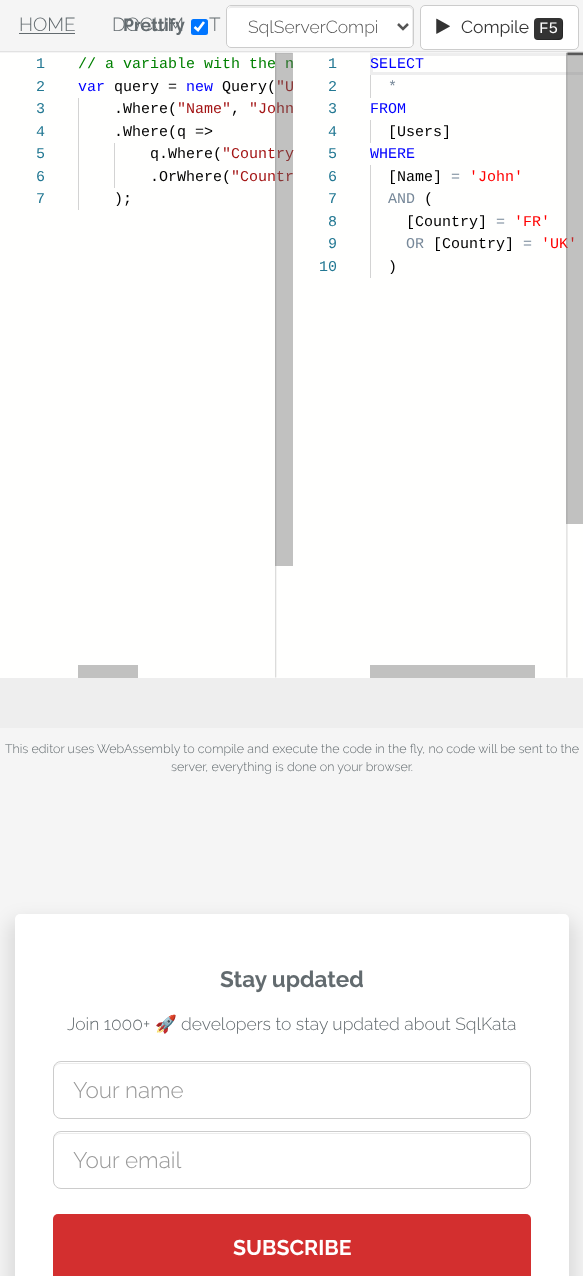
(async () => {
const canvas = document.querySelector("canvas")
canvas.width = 583
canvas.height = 1276
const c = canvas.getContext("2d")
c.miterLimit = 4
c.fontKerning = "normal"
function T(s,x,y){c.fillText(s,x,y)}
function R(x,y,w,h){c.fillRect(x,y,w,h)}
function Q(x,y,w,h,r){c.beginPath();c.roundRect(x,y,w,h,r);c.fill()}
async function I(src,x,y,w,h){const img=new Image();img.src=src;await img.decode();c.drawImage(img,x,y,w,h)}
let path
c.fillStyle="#f5f5f5"
R(0,0,583,1276)
c.fillStyle="#e2e2e2"
R(0,51,583,1)
c.font="300 19px Raleway"
c.fillStyle="#636b6f"
T("HOME",19,31)
R(19,33,56,1)
T("DOCUM",112,31)
T("T",209,31)
c.font="bold 17.5px Raleway"
T("Prettify",123,31)
c.fillStyle="#0075ff"
Q(191,19,17,16,2.5)
path = new Path2D("M194.5 27l3.5 3l6-8")
c.strokeStyle="#fff"
c.lineWidth=2.6
c.stroke(path)
c.fillStyle="#fff"
Q(226,5,188,43,5)
c.fillStyle="#ececec"
path = new Path2D("M231 8h178c2 0 3 1 3 3v34c1-1 1-2 1-3v-32c0-2-2-4-4-4h-177c-2 0-4 2-4 4v1c0-2 1-3 3-3z")
c.fill(path)
c.beginPath()
c.roundRect(226.5,5.5,187,42,4.5)
c.strokeStyle="#ccc"
c.lineWidth=1
c.stroke()
path = new Path2D("M398 24l5 5l5-5")
c.strokeStyle="#555"
c.lineWidth=2.5
c.stroke(path)
c.font="300 17.5px Raleway"
c.fillStyle="#555"
T("SqlServerCompi",248,33)
c.fillStyle="#fff"
c.beginPath()
c.roundRect(420.5,5.5,158,44,4.5)
c.fill()
c.strokeStyle="#ccc"
c.lineWidth=1
c.stroke()
await I("1.png",436,18,14,16)
c.font="17.5px Raleway"
c.fillStyle="#333"
T("Compile",461,33)
Q(534,18,29,22,4)
c.fillStyle="#00000040"
path = new Path2D("M562 19.5v15.5l-.5 2.5c-.5 .5-1.5 1-2 1c-4 1-11.5 .5-16 .5h-7c-1.5-.5-2-1.5-2.5-3c0 4.5 4.5 4 7.5 4h10.5c11.5 0 11 .5 11-11c0-2.5 1-7.5-1-9.5z")
c.fill(path)
c.font="16px Liberation Mono"
c.fillStyle="#fff"
T("F5",539,33)
c.fillStyle="#fffffe"
R(0,53,583,625)
c.font="15px Liberation Mono"
c.fillStyle="#237893"
T("1",36,68)
T("2",36,91)
T("3",36,113)
T("4",36,136)
T("5",36,158)
T("6",36,181)
T("7",36,203)
c.fillStyle="#008000"
T("// a variable with the n",78,68)
c.fillStyle="#a31515"
T("\"U",276,91)
T("\"John",249,113)
T("\"Country",222,158)
T("\"Countr",231,181)
await I("2.png",275,52,18,626)
c.fillStyle="#63636366"
R(275,53,18,513)
c.fillStyle="#00f"
T("var",78,91)
c.fillStyle="#000"
T("query =",114,91)
c.fillStyle="#00f"
T("new",186,91)
c.fillStyle="#000"
T("Query(",222,91)
T(".Where(",114,113)
c.fillStyle="#a31515"
T("\"Name\"",177,113)
c.fillStyle="#000"
T(",",231,113)
T(".Where(q =>",114,136)
T("q.Where(",150,158)
T(".OrWhere(",150,181)
T(");",114,203)
c.fillStyle="#d3d3d3"
R(78,98,1,112)
R(114,143,1,45)
c.fillStyle="#c1c1c0"
R(78,665,60,13)
c.fillStyle="#237893"
T("1",328,68)
T("2",328,91)
T("3",328,113)
T("4",328,136)
T("5",328,158)
T("6",328,181)
T("7",328,203)
T("8",328,226)
T("9",328,248)
T("10",319,271)
c.strokeStyle="#eee"
c.lineWidth=3
c.strokeRect(371.5,54.5,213,19)
c.fillStyle="#f00"
T("'UK'",541,248)
await I("3.png",566,52,17,626)
c.fillStyle="#d3d3d3"
R(370,75,1,23)
R(370,120,1,23)
R(370,165,1,113)
c.fillStyle="#00f"
T("SELECT",370,68)
c.fillStyle="#789"
T("*",388,91)
c.fillStyle="#00f"
T("FROM",370,113)
c.fillStyle="#000"
T("[Users]",388,136)
c.fillStyle="#00f"
T("WHERE",370,158)
c.fillStyle="#000"
T("[Name]",388,181)
c.fillStyle="#789"
T("=",451,181)
c.fillStyle="#f00"
T("'John'",469,181)
c.fillStyle="#789"
T("AND",388,203)
c.fillStyle="#000"
T("(",424,203)
T("[Country]",406,226)
c.fillStyle="#789"
T("=",496,226)
c.fillStyle="#f00"
T("'FR'",514,226)
c.fillStyle="#789"
T("OR",406,248)
c.fillStyle="#000"
T("[Country]",433,248)
c.fillStyle="#789"
T("=",523,248)
c.fillStyle="#000"
T(")",388,271)
c.fillStyle="#63636366"
R(566,53,17,471)
c.fillStyle="#c1c1c0"
R(370,665,165,13)
c.fillStyle="#eee"
R(0,678,583,50)
c.font="300 12.5px Raleway"
c.fillStyle="#636b6f"
T("This editor uses WebAssembly to compile and execute the code in the fly, no code will be sent to the",5,753)
T("server, everything is done on your browser.",171,771)
c.fillStyle="#0000001a"
c.filter="blur(9px)"
c.beginPath()
c.roundRect(8,919,568,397,13)
c.fill()
c.filter="none"
c.fillStyle="#fff"
Q(15,914,554,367,5)
c.font="bold 22.5px Raleway"
c.fillStyle="#636b6f"
T("Stay updated",220,987)
c.font="300 17.5px Raleway"
T("Join 1000+",67,1030)
c.font="17.5px Noto Color Emoji"
T("🚀",155,1030)
c.font="300 17.5px Raleway"
T("developers to stay updated about SqlKata",181,1030)
c.fillStyle="#ececec"
path = new Path2D("M60 1064h464c3 0 6 3 6 6c0-4-2-7-6-7h-464c-4 0-6 3-6 7c0-3 3-6 6-6z")
c.fill(path)
c.beginPath()
c.roundRect(53.5,1061.5,477,57,7.5)
c.strokeStyle="#ccc"
c.lineWidth=1
c.stroke()
c.font="300 22.5px Raleway"
c.fillStyle="#999"
T("Your name",73,1098)
c.fillStyle="#ececec"
path = new Path2D("M60 1134h464c3 0 6 3 6 6c0-4-2-7-6-7h-464c-4 0-6 3-6 7c0-3 3-6 6-6z")
c.fill(path)
c.beginPath()
c.roundRect(53.5,1131.5,477,57,7.5)
c.stroke()
c.fillStyle="#999"
T("Your email",73,1168)
c.fillStyle="#d32f2f"
Q(53,1214,478,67,5)
c.font="bold 21.25px Raleway"
c.fillStyle="#fff"
T("SUBSCRIBE",233,1255)
})()
